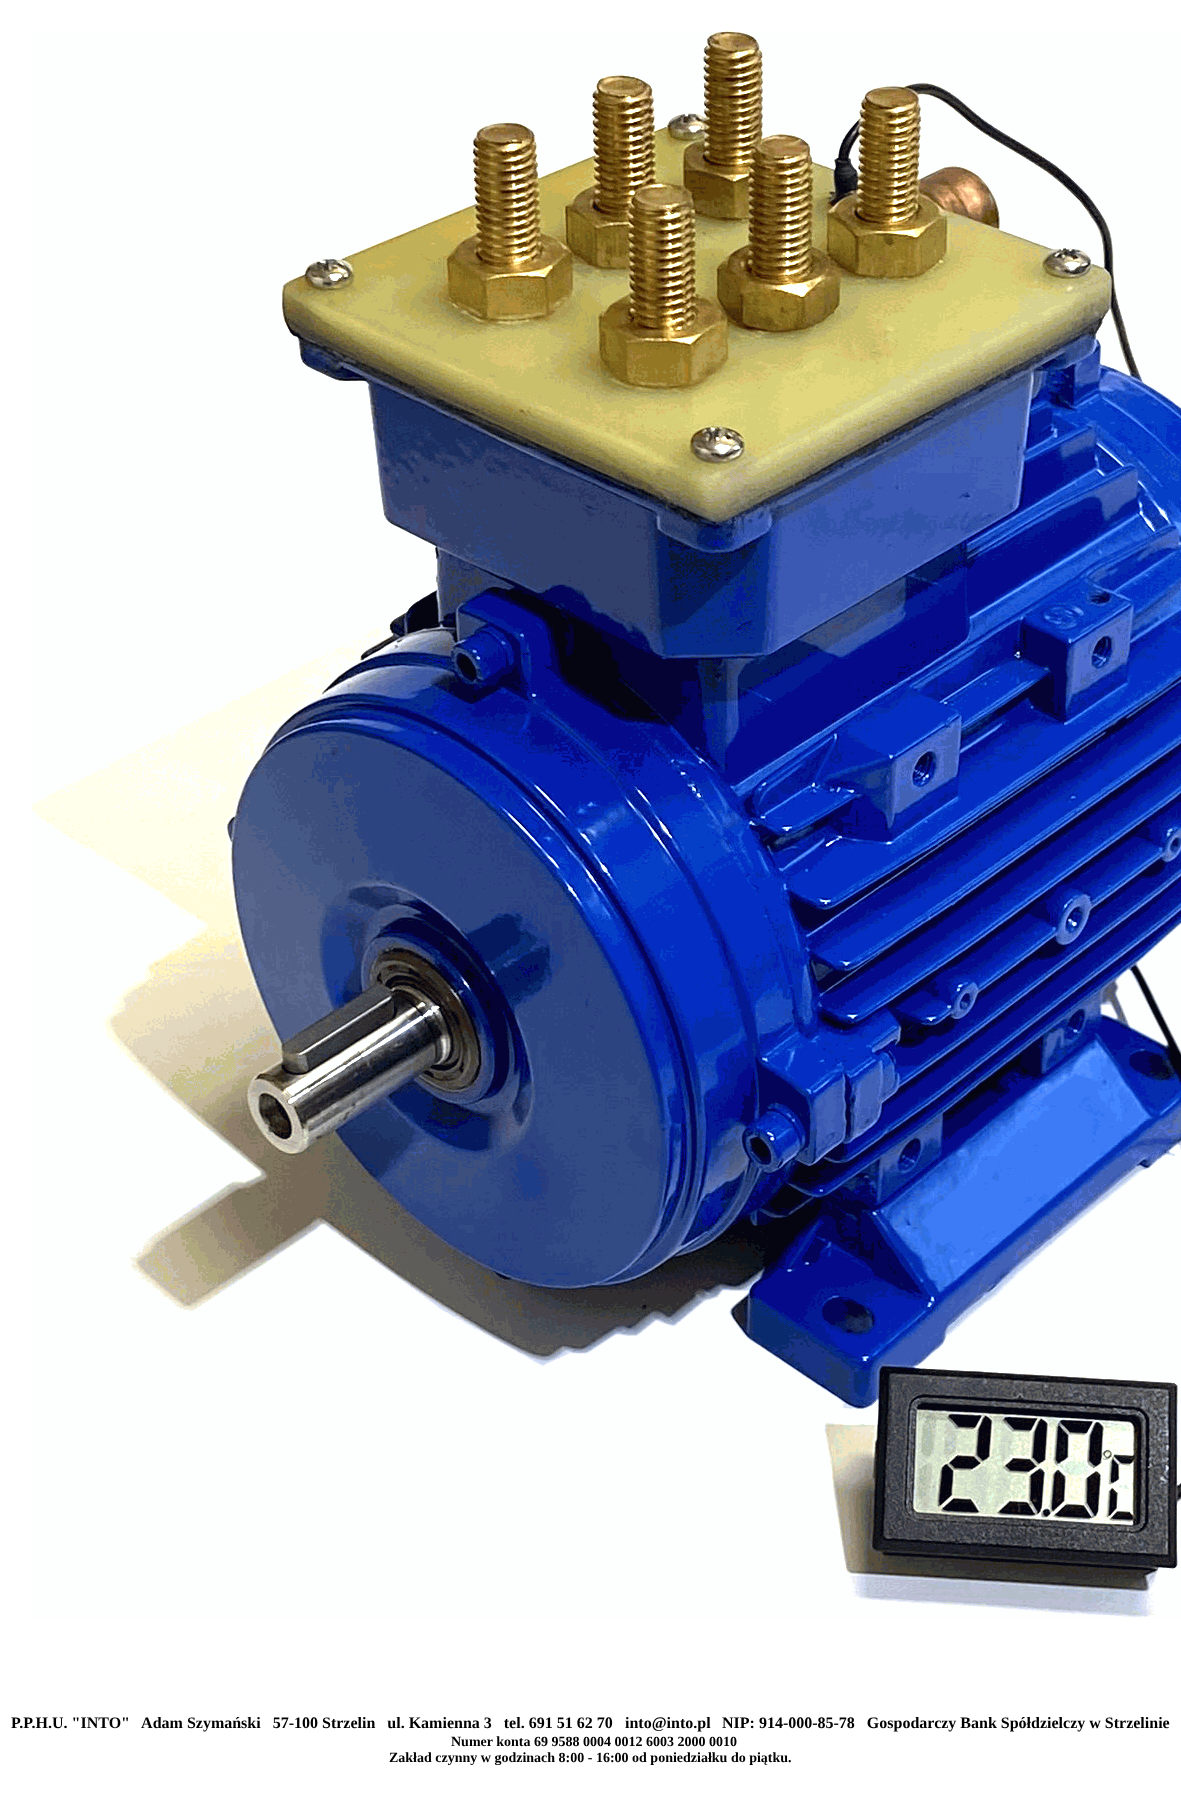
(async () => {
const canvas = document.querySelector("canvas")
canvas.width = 1181
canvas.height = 1804
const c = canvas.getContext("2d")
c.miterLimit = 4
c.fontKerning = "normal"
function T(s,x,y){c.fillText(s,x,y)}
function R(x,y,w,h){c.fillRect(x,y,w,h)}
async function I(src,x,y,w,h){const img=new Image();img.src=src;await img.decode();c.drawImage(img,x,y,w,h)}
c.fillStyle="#fff"
R(0,0,1181,1804)
await I("1.png",32,31,1149,1587)
c.font="bold 16px Liberation Serif"
c.fillStyle="#000"
T("P.P.H.U. \"INTO\"   Adam Szymański   57-100 Strzelin   ul. Kamienna 3   tel. 691 51 62 70",11,1728)
T("into@into.pl",625,1728)
T("NIP: 914-000-85-78   Gospodarczy Bank Spółdzielczy w Strzelinie",722,1728)
c.font="bold 14px Liberation Serif"
T("Numer konta 69 9588 0004 0012 6003 2000 0010",451,1746)
T("Zakład czynny w godzinach 8:00 - 16:00 od poniedziałku do piątku.",389,1762)
})()
